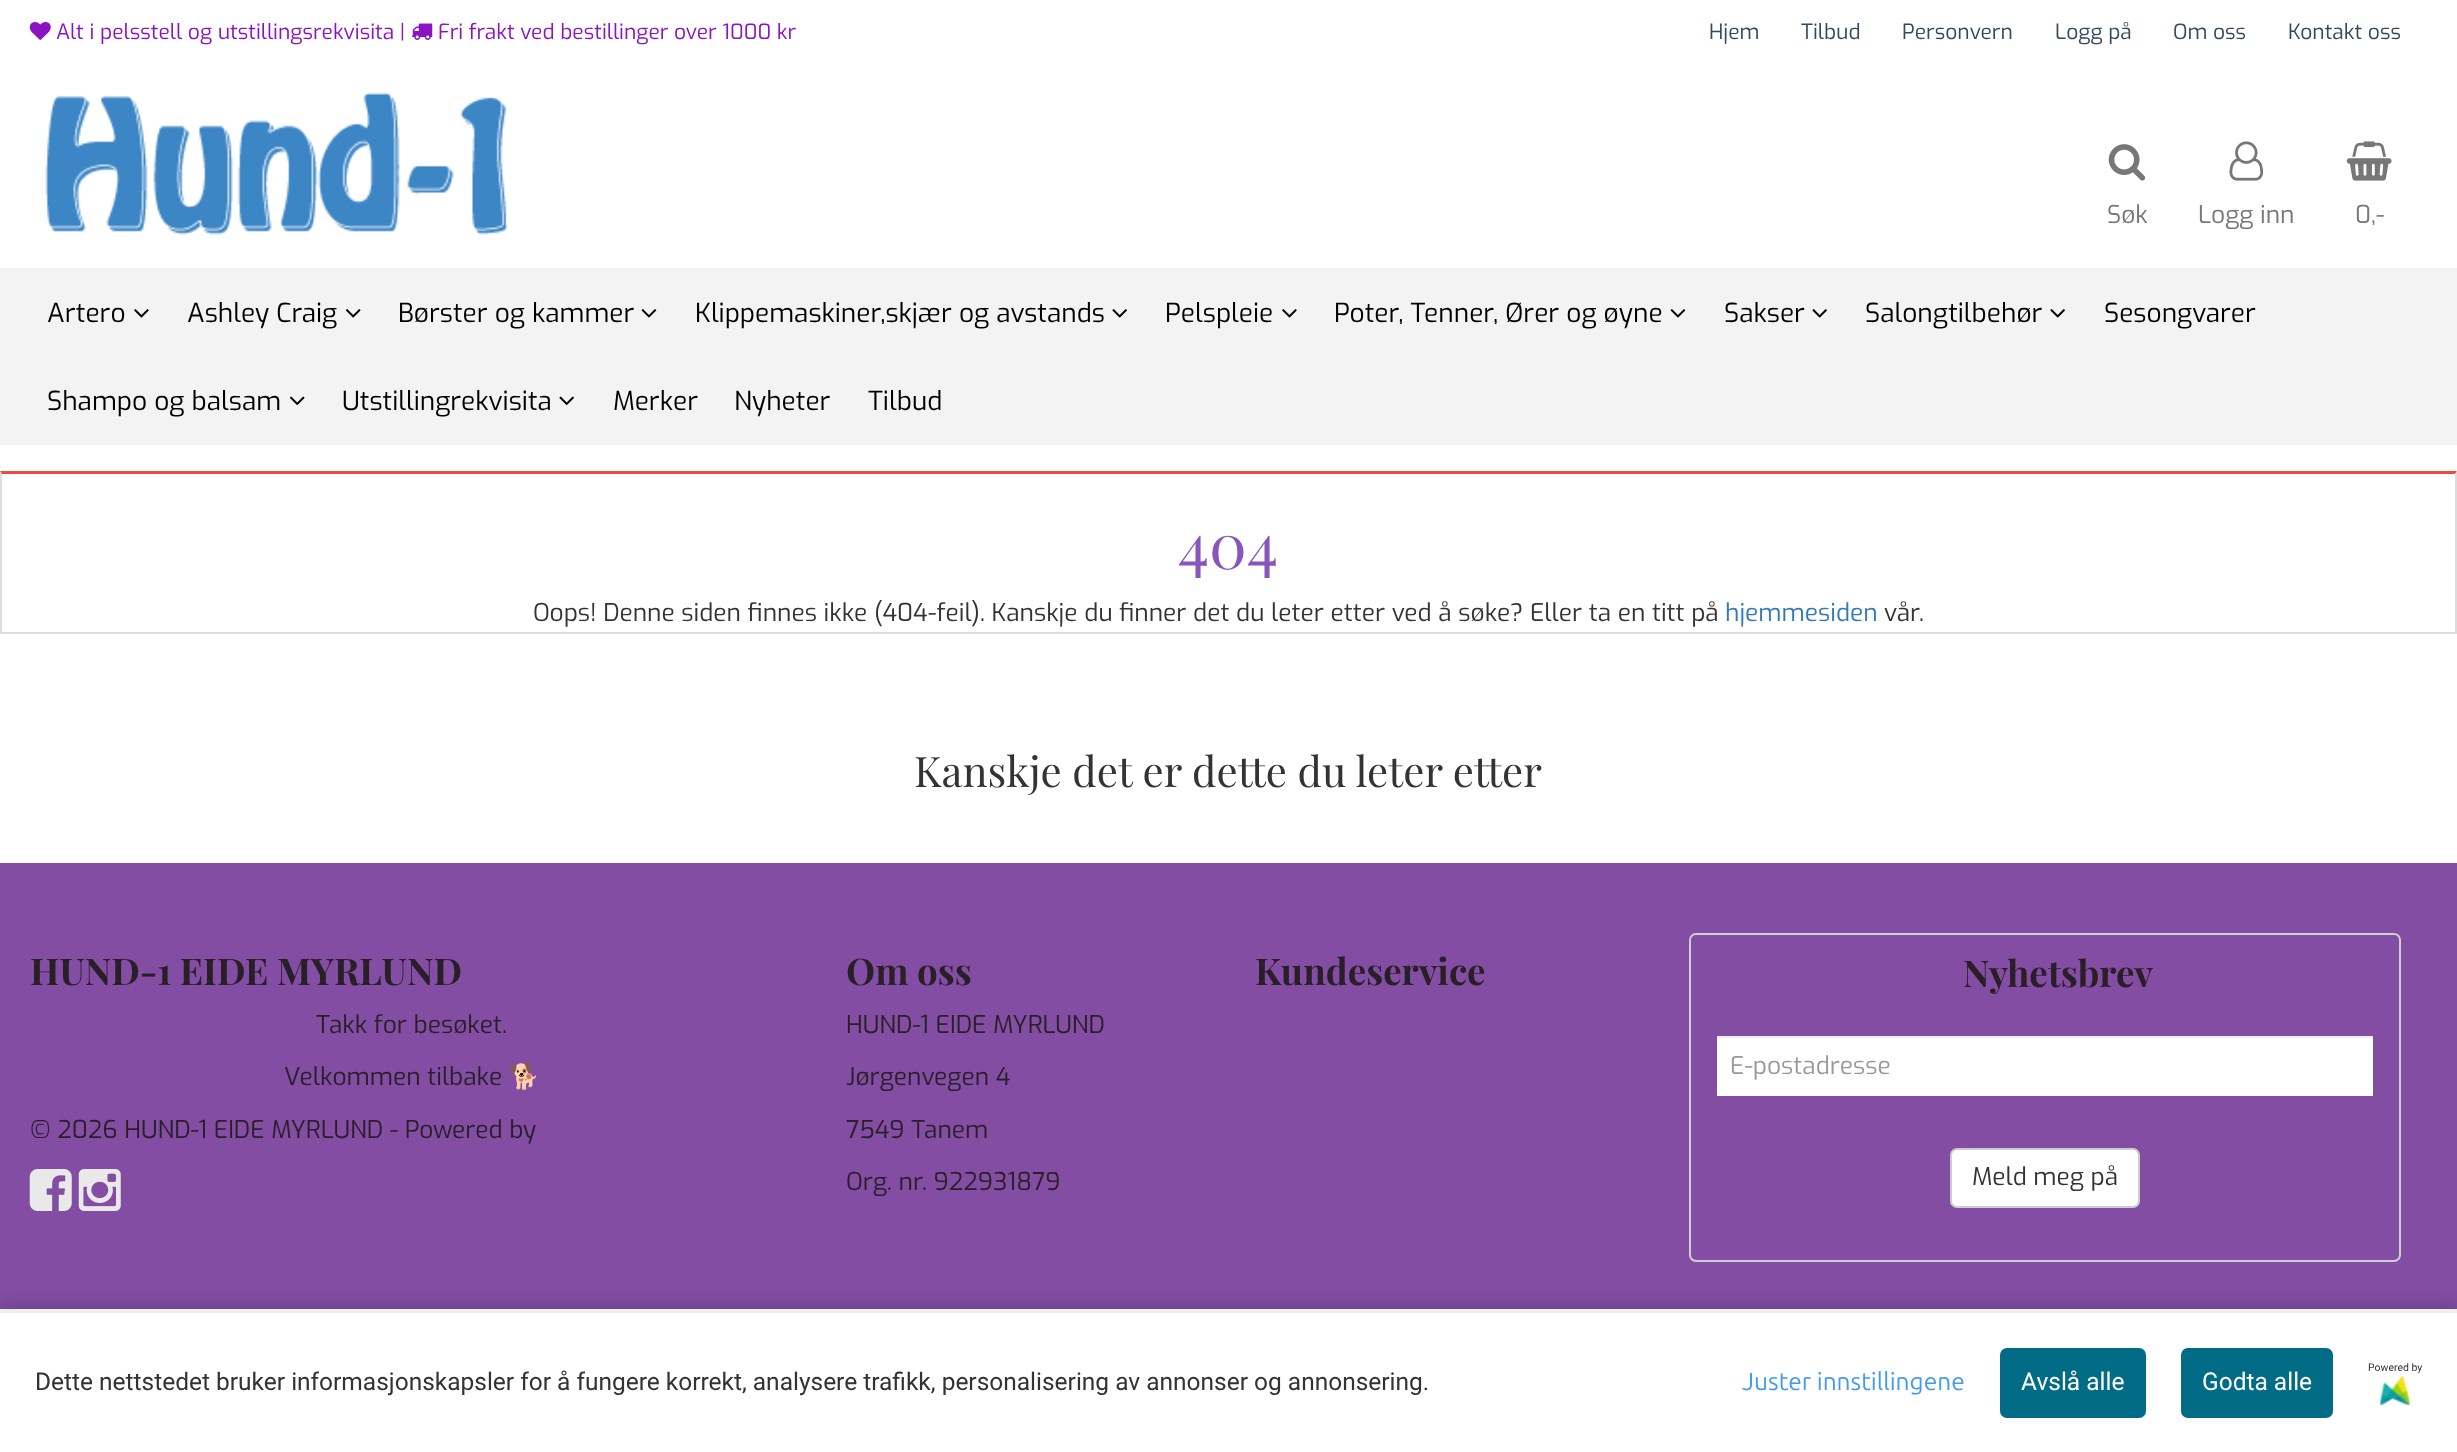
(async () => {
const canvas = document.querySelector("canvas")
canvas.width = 2457
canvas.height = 1452
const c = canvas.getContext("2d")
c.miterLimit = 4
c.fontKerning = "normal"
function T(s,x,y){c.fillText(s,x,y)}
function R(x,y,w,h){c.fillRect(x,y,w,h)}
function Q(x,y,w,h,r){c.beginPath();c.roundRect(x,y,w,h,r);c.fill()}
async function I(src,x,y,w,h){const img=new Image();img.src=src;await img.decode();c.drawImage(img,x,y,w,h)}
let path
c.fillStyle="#fff"
R(0,0,2457,1452)
await I("1.png",29,22,22,18)
c.font="21px Exo"
c.fillStyle="#8a13c2"
T("Alt i pelsstell og utstillingsrekvisita |",56,39)
await I("2.png",412,23,21,17)
T("Fri frakt ved bestillinger over 1000 kr",438,39)
c.fillStyle="#34495e"
T("Hjem",1709,39)
T("Tilbud",1801,39)
T("Personvern",1902,39)
T("Logg på",2055,39)
T("Om oss",2173,39)
T("Kontakt oss",2288,39)
await I("3.png",45,92,463,143)
await I("4.png",2108,144,38,37)
c.font="24.5px Exo"
c.fillStyle="#777"
T("Søk",2107,223)
await I("5.png",2229,141,35,40)
T("Logg inn",2198,223)
await I("6.png",2346,141,46,40)
T("0,-",2355,223)
c.fillStyle="#f3f3f3"
R(0,268,2457,177)
c.font="26.25px Exo"
c.fillStyle="#000"
T("Artero",47,322)
await I("7.png",134,309,15,9)
T("Ashley Craig",187,322)
await I("8.png",345,309,16,9)
T("Børster og kammer",398,322)
await I("9.png",641,309,16,9)
T("Klippemaskiner,skjær og avstands",695,322)
await I("10.png",1112,309,15,9)
T("Pelspleie",1165,322)
await I("7.png",1282,309,15,9)
T("Poter, Tenner, Ører og øyne",1334,322)
await I("9.png",1670,309,16,9)
T("Sakser",1724,322)
await I("10.png",1812,309,15,9)
T("Salongtilbehør",1865,322)
await I("10.png",2050,309,15,9)
T("Sesongvarer",2104,322)
T("Shampo og balsam",47,410)
await I("11.png",289,396,16,9)
T("Utstillingrekvisita",342,410)
await I("12.png",559,396,15,9)
T("Merker",613,410)
T("Nyheter",734,410)
T("Tilbud",868,410)
c.fillStyle="#ee4a42"
path = new Path2D("M0 471h2457l-2 3h-2453z")
c.fill(path)
c.fillStyle="#ddd"
path = new Path2D("M2457 471v163l-2-2v-158z")
c.fill(path)
R(0,632,2457,2)
path = new Path2D("M0 634v-163l2 3v158z")
c.fill(path)
c.font="63px Playfair Display"
c.fillStyle="#8955bd"
T("404",1178,569)
c.font="24.5px Exo"
c.fillStyle="#333"
T("Oops! Denne siden finnes ikke (404-feil). Kanskje du finner det du leter etter ved å søke? Eller ta en titt på",533,621)
c.fillStyle="#337ab7"
T("hjemmesiden",1725,621)
c.fillStyle="#333"
T("vår.",1884,621)
c.font="42px Playfair Display"
T("Kanskje det er dette du leter etter",914,787)
c.fillStyle="#824da3"
R(0,863,2457,446)
c.font="bold 36.75px Playfair Display"
c.fillStyle="#291f26"
T("HUND-1 EIDE MYRLUND",30,985)
c.font="24.5px Exo"
T("Takk for besøket.",316,1033)
T("Velkommen tilbake",284,1085)
c.font="24.5px Noto Color Emoji"
T("🐕",509,1085)
c.font="24.5px Exo"
T("© 2026 HUND-1 EIDE MYRLUND - Powered by",30,1138)
await I("13.png",29,1169,43,42)
await I("14.png",78,1169,43,42)
c.font="bold 36.75px Playfair Display"
T("Om oss",846,985)
c.font="24.5px Exo"
T("HUND-1 EIDE MYRLUND",846,1033)
T("Jørgenvegen 4",846,1085)
T("7549 Tanem",846,1138)
T("Org. nr. 922931879",846,1190)
c.font="bold 36.75px Playfair Display"
T("Kundeservice",1255,985)
c.beginPath()
c.roundRect(1690,934,710,327,6)
c.strokeStyle="#cdd0d1"
c.lineWidth=2
c.stroke()
T("Nyhetsbrev",1963,987)
c.fillStyle="#fff"
R(1717,1038,656,58)
c.fillStyle="#ececec"
R(1717,1036,656,2)
c.font="24.5px Exo"
c.fillStyle="#999"
T("E-postadresse",1730,1074)
c.fillStyle="#fff"
c.beginPath()
c.roundRect(1951,1149,188,58,6)
c.fill()
c.strokeStyle="#ccc"
c.stroke()
c.fillStyle="#333"
T("Meld meg på",1972,1185)
c.fillStyle="#00000040"
c.filter="blur(9px)"
c.beginPath()
c.rect(0,1309,2457,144)
c.fill()
c.filter="none"
c.fillStyle="#fff"
R(0,1313,2457,139)
c.fillStyle="#eee"
R(0,1309,2457,4)
c.font="24.5px Roboto"
c.fillStyle="#333"
T("Dette nettstedet bruker informasjonskapsler for å fungere korrekt, analysere trafikk, personalisering av annonser og annonsering.",35,1390)
c.font="24.5px Ubuntu"
c.fillStyle="#409aef"
T("Juster innstillingene",1742,1390)
c.font="10.5px Roboto"
c.fillStyle="#333"
T("Powered by",2368,1371)
await I("15.png",2380,1375,31,31)
c.fillStyle="#026b85"
Q(2000,1348,146,70,7)
c.font="24.5px Roboto"
c.fillStyle="#fff"
T("Avslå alle",2021,1390)
c.fillStyle="#026b85"
Q(2181,1348,152,70,7)
c.fillStyle="#fff"
T("Godta alle",2202,1390)
})()
